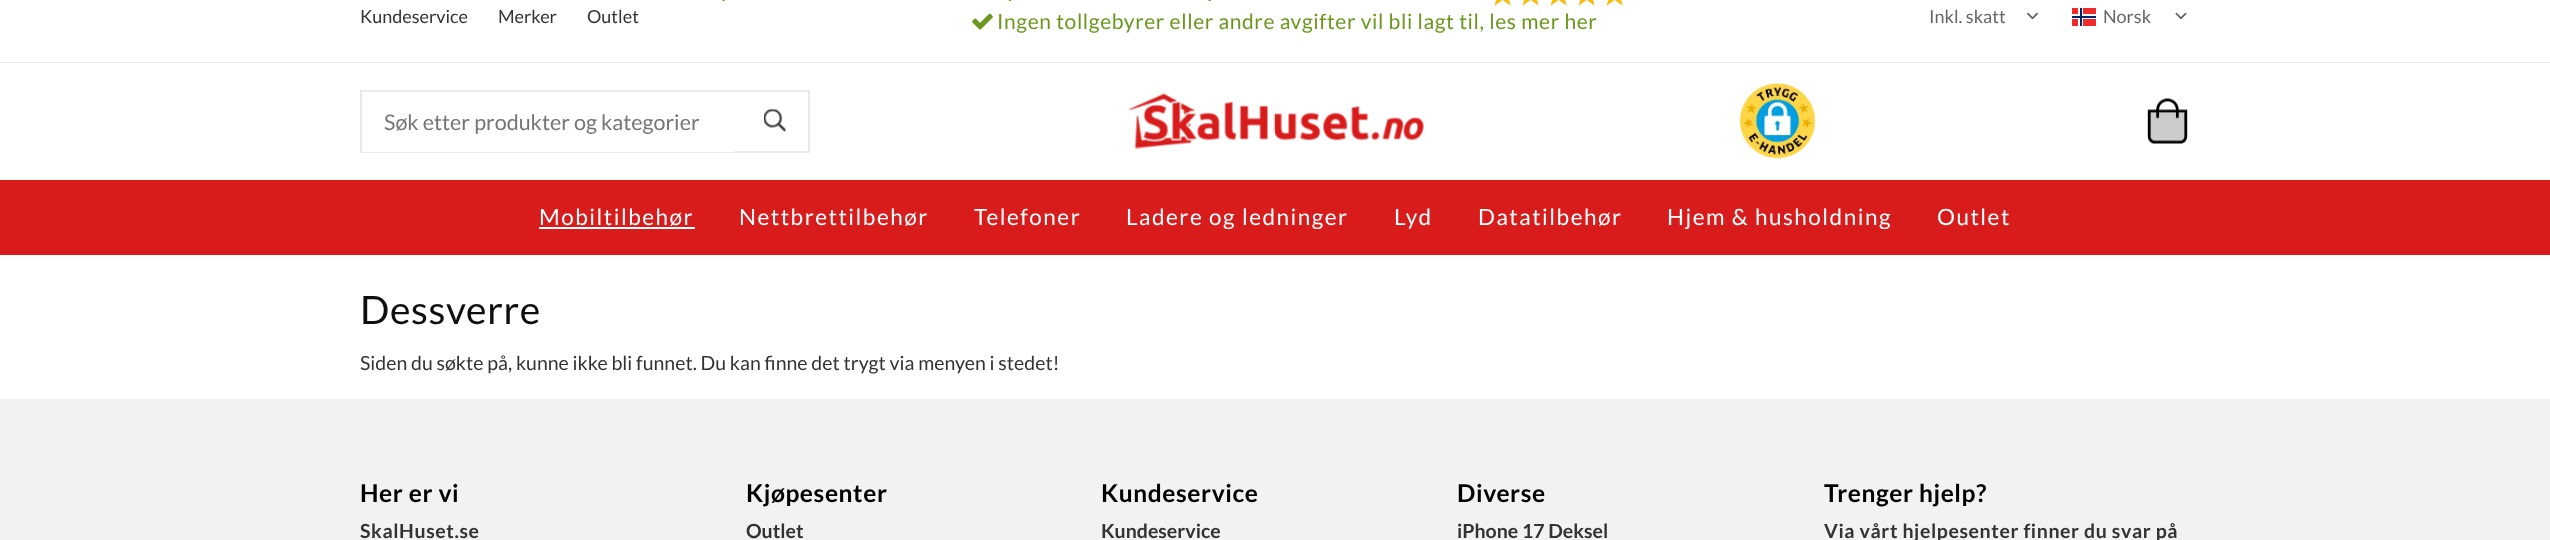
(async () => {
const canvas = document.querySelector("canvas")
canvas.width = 2550
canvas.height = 540
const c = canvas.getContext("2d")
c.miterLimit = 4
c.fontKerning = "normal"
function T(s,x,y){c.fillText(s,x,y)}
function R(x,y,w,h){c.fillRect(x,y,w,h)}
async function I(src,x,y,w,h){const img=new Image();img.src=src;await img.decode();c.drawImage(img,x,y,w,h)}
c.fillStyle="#fff"
R(0,0,2550,540)
c.fillStyle="#ebeaea"
R(0,62,2550,1)
c.font="18px Lato"
c.fillStyle="#333"
T("Kundeservice",360,23)
T("Merker",498,23)
T("Outlet",587,23)
await I("1.png",722,0,3,2)
await I("2.png",1008,0,4,1)
await I("1.png",1208,0,3,2)
await I("3.png",1494,0,129,6)
await I("4.png",1494,0,129,6)
await I("5.png",972,13,21,17)
c.letterSpacing="0.6px"
c.font="21px Lato"
c.fillStyle="#69981d"
T("Ingen tollgebyrer eller andre avgifter vil bli lagt til, les mer her",997,29)
c.letterSpacing="0px"
c.font="18px Lato"
c.fillStyle="#666"
T("Inkl. skatt",1929,23)
await I("6.png",2026,12,13,8)
c.fillStyle="#ef2b2d"
R(2072,8,24,18)
c.fillStyle="#fff"
R(2078,8,5,18)
R(2072,14,24,5)
c.fillStyle="#002868"
R(2080,8,2,18)
R(2072,16,24,2)
c.fillStyle="#666"
T("Norsk",2103,23)
await I("7.png",2175,12,12,8)
c.strokeStyle="#ebeaea"
c.lineWidth=2
c.strokeRect(361,91,448,61)
c.fillStyle="#fff"
R(362,151,372,1)
c.font="21.5px Lato"
c.fillStyle="#757575"
T("Søk etter produkter og kategorier",384,130)
await I("8.png",764,108,23,24)
await I("9.png",1128,93,296,56)
await I("10.png",1740,83,75,76)
c.fillStyle="#ccc"
c.beginPath()
c.roundRect(2150,113,36,30,[0,0,3,3])
c.fill()
await I("11.png",2147,98,41,46)
c.fillStyle="#d81b1b"
R(0,180,2550,75)
c.letterSpacing="1.5px"
c.font="22.5px Lato"
c.fillStyle="#fff"
T("Mobiltilbehør",539,225)
R(539,227,156,2)
T("Nettbrettilbehør",739,225)
T("Telefoner",974,225)
T("Ladere og ledninger",1126,225)
T("Lyd",1394,225)
T("Datatilbehør",1478,225)
T("Hjem & husholdning",1667,225)
T("Outlet",1937,225)
c.letterSpacing="0.6px"
c.font="39px Lato"
c.fillStyle="#0f0f0f"
T("Dessverre",360,324)
c.letterSpacing="0px"
c.font="19.5px Lato"
c.fillStyle="#333"
T("Siden du søkte på, kunne ikke bli funnet. Du kan finne det trygt via menyen i stedet!",360,370)
c.fillStyle="#f2f2f2"
R(0,399,2550,141)
c.letterSpacing="0.6px"
c.font="bold 24.5px Lato"
c.fillStyle="#000"
T("Her er vi",360,502)
c.font="bold 19.5px Lato"
c.fillStyle="#333"
T("SkalHuset.se",360,538)
c.font="bold 24.5px Lato"
c.fillStyle="#000"
T("Kjøpesenter",746,502)
c.letterSpacing="0px"
c.font="bold 19.5px Lato"
c.fillStyle="#333"
T("Outlet",746,538)
c.letterSpacing="0.6px"
c.font="bold 24.5px Lato"
c.fillStyle="#000"
T("Kundeservice",1101,502)
c.letterSpacing="0px"
c.font="bold 19.5px Lato"
c.fillStyle="#333"
T("Kundeservice",1101,538)
c.letterSpacing="0.6px"
c.font="bold 24.5px Lato"
c.fillStyle="#000"
T("Diverse",1457,502)
c.letterSpacing="0px"
c.font="bold 19.5px Lato"
c.fillStyle="#333"
T("iPhone 17 Deksel",1457,538)
c.letterSpacing="0.6px"
c.font="bold 24.5px Lato"
c.fillStyle="#000"
T("Trenger hjelp?",1824,502)
c.font="bold 19.5px Lato"
c.fillStyle="#333"
T("Via vårt hjelpesenter finner du svar på",1824,538)
})()
